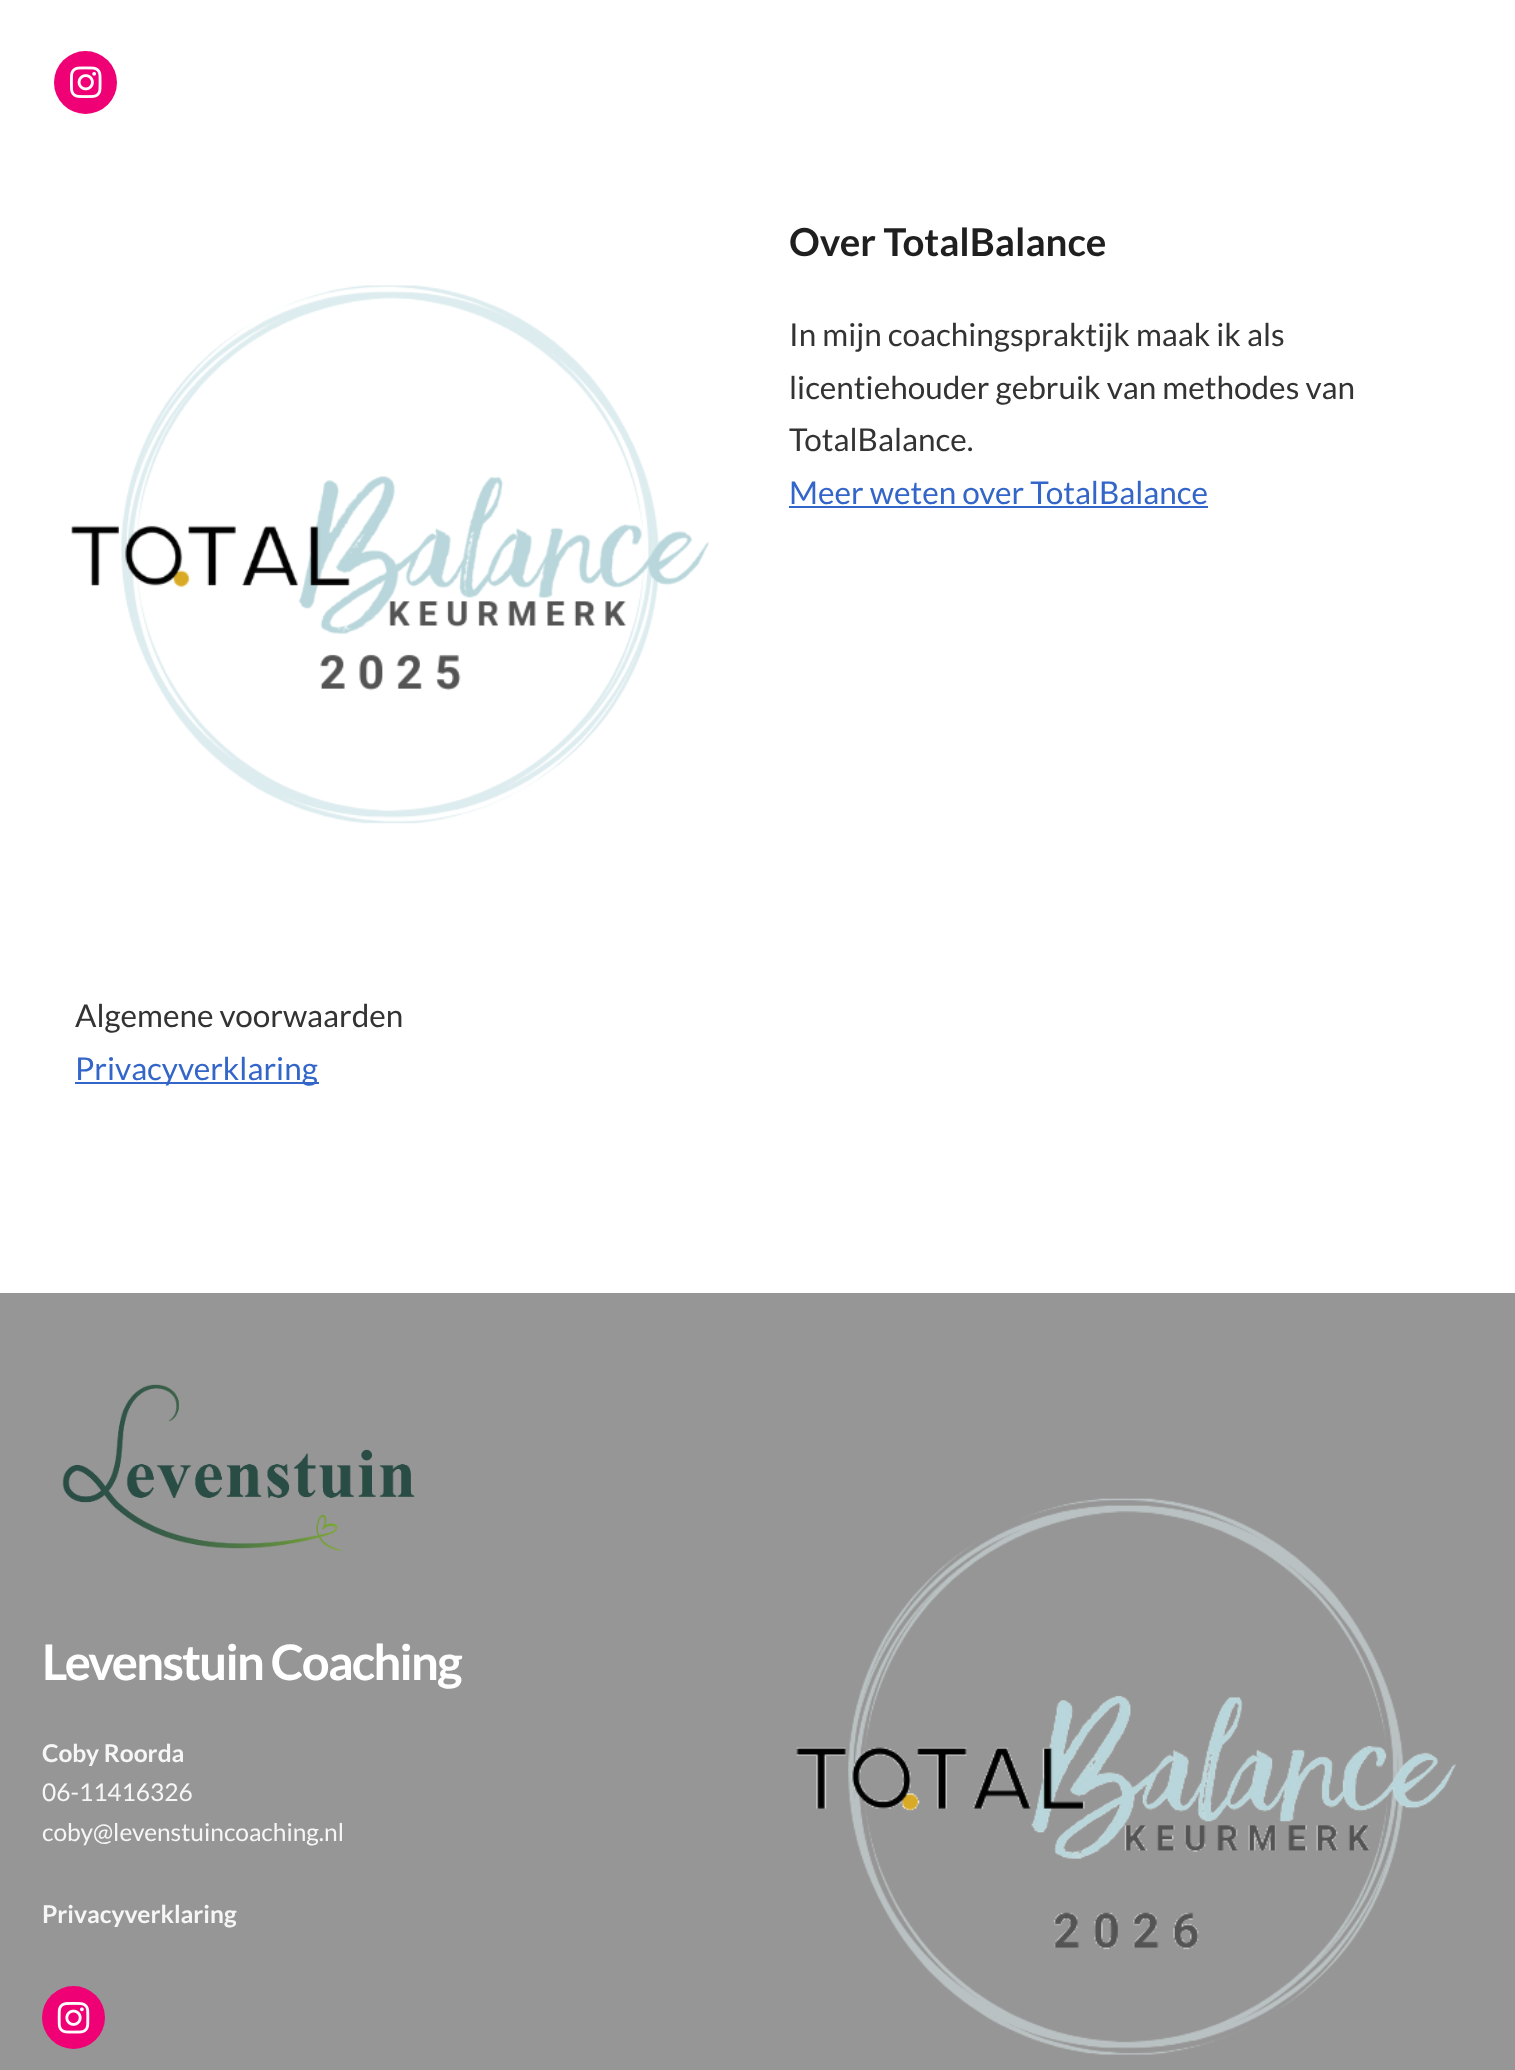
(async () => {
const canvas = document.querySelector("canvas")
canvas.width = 1515
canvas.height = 2070
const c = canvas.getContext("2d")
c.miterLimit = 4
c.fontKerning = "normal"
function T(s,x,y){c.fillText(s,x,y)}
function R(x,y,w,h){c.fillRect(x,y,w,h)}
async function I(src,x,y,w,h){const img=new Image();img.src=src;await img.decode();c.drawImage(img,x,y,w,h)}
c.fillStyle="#fff"
R(0,0,1515,2070)
c.fillStyle="#f00075"
c.beginPath()
c.arc(85.5,82.5,31.5,0,7)
c.fill()
await I("1.png",70,66,32,32)
await I("2.png",71,285,638,539)
c.font="bold 38.5px Lato"
c.fillStyle="#1f1f1f"
T("Over TotalBalance",789,256)
c.font="31.5px Lato"
c.fillStyle="#333"
T("In mijn coachingspraktijk maak ik als",789,346)
T("licentiehouder gebruik van methodes van",789,399)
T("TotalBalance.",789,451)
c.fillStyle="#3366c8"
T("Meer weten over TotalBalance",789,504)
R(789,506,419,2)
c.fillStyle="#333"
T("Algemene voorwaarden",75,1027)
c.fillStyle="#3366c8"
R(75,1082,244,2)
T("Privacyverklaring",75,1080)
c.fillStyle="#969696"
R(0,1293,1515,777)
await I("3.png",62,1384,353,167)
c.letterSpacing="-1.75px"
c.font="bold 49px Lato"
c.fillStyle="#fff"
T("Levenstuin Coaching",42,1680)
c.letterSpacing="0px"
c.font="bold 24.5px Lato"
c.fillStyle="#f6f6f6"
T("Coby Roorda",42,1762)
c.font="24.5px Lato"
T("06-11416326",42,1801)
T("coby@levenstuincoaching.nl",42,1841)
c.font="bold 24.5px Lato"
T("Privacyverklaring",42,1923)
c.fillStyle="#f00075"
c.beginPath()
c.arc(73.5,2017.5,31.5,0,7)
c.fill()
await I("4.png",57,2002,33,32)
await I("5.png",796,1498,660,557)
})()
